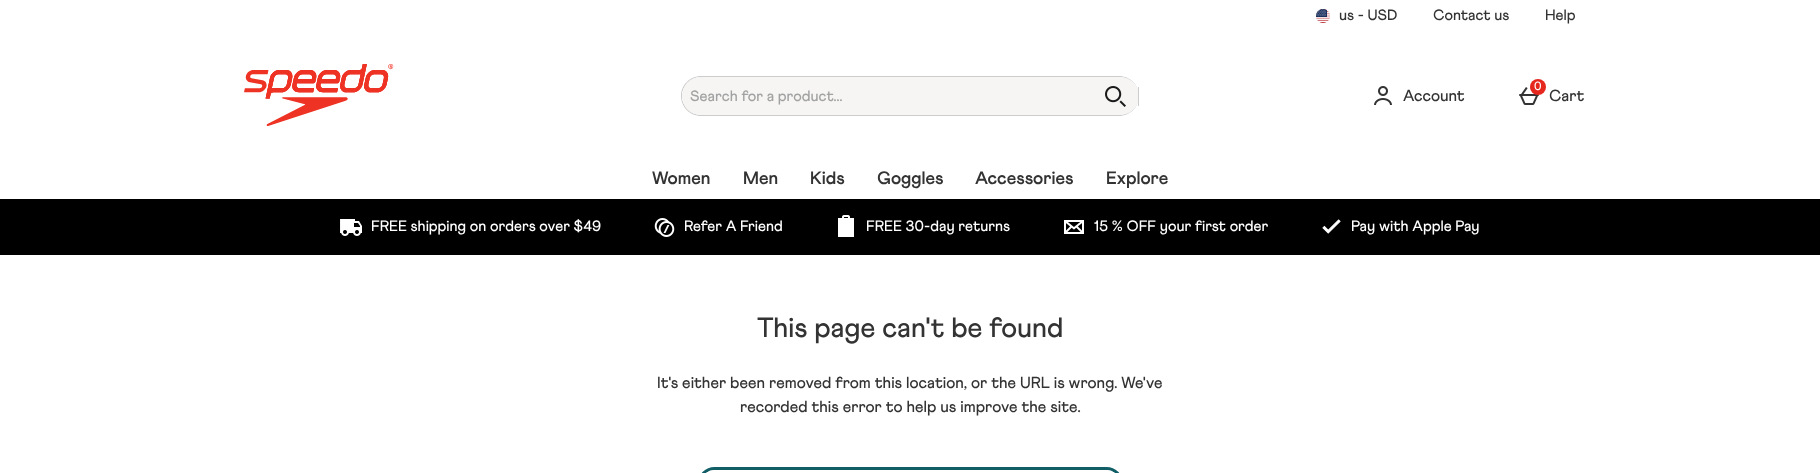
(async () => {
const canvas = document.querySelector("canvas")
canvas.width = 1820
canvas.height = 473
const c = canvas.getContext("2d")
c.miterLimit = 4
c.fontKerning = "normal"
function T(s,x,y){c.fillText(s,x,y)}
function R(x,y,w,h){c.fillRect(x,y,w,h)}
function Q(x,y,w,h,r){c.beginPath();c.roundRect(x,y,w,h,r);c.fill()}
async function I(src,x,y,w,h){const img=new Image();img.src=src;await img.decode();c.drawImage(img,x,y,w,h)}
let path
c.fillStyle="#fff"
R(0,0,1820,473)
await I("1.png",1316,9,14,14)
c.font="500 15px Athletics"
c.fillStyle="#333"
T("us - USD",1339,20)
T("Contact us",1433,20)
T("Help",1545,20)
await I("2.png",244,64,150,62)
c.fillStyle="#ccc"
path = new Path2D("M701 76h418c11 0 20 9 20 20c0 11-9 20-20 20h-418c-11 0-20-9-20-20c0-11 9-20 20-20zm0 1h418c11 0 20 9 20 19c0 10-9 19-20 19h-418c-10 0-19-9-19-19c0-10 9-19 19-19z")
c.fill(path,"evenodd")
c.fillStyle="#f6f5f4"
c.beginPath()
c.roundRect(682,77,409,38,[19,0,0,19])
c.fill()
Q(682,77,373,38,19)
c.fillStyle="#a2a2a2"
T("Search for a product...",690,101)
c.fillStyle="#f6f5f4"
c.beginPath()
c.roundRect(1091,77,48,38,[0,19,19,0])
c.fill()
c.fillStyle="#ccc"
R(1138,87,1,19)
await I("3.png",1105,86,21,21)
await I("4.png",1374,86,18,19)
c.font="500 16px Athletics"
c.fillStyle="#333"
T("Account",1403,101)
await I("5.png",1519,87,20,18)
c.fillStyle="#e5271e"
c.beginPath()
c.arc(1538,87,8,0,7)
c.fill()
c.font="500 12px Athletics"
c.fillStyle="#fff"
T("0",1534,90)
c.font="500 16px Athletics"
c.fillStyle="#333"
T("Cart",1549,101)
c.font="bold 18px Athletics"
T("Women",652,184)
T("Men",743,184)
T("Kids",810,184)
T("Goggles",877,184)
T("Accessories",975,184)
T("Explore",1106,184)
c.fillStyle="#000"
R(0,199,1820,56)
await I("6.png",340,219,23,17)
c.font="500 15px Athletics"
c.fillStyle="#fff"
T("FREE shipping on orders over $49",371,231)
await I("7.png",654,218,21,19)
T("Refer A Friend",684,231)
await I("8.png",838,215,16,22)
T("FREE 30-day returns",866,231)
await I("9.png",1064,220,20,14)
T("15 % OFF your first order",1094,231)
await I("10.png",1322,219,19,15)
T("Pay with Apple Pay",1351,231)
c.font="500 28px Athletics"
c.fillStyle="#333"
T("This page can't be found",757,337)
c.font="500 16px Athletics"
T("It's either been removed from this location, or the URL is wrong. We've",657,388)
T("recorded this error to help us improve the site.",740,412)
c.beginPath()
c.roundRect(699.5,468.5,422,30,22.5)
c.strokeStyle="#115e67"
c.lineWidth=3
c.stroke()
c.beginPath()
c.roundRect(702.5,471.5,416,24,19.5)
c.strokeStyle="#fff"
c.stroke()
})()
